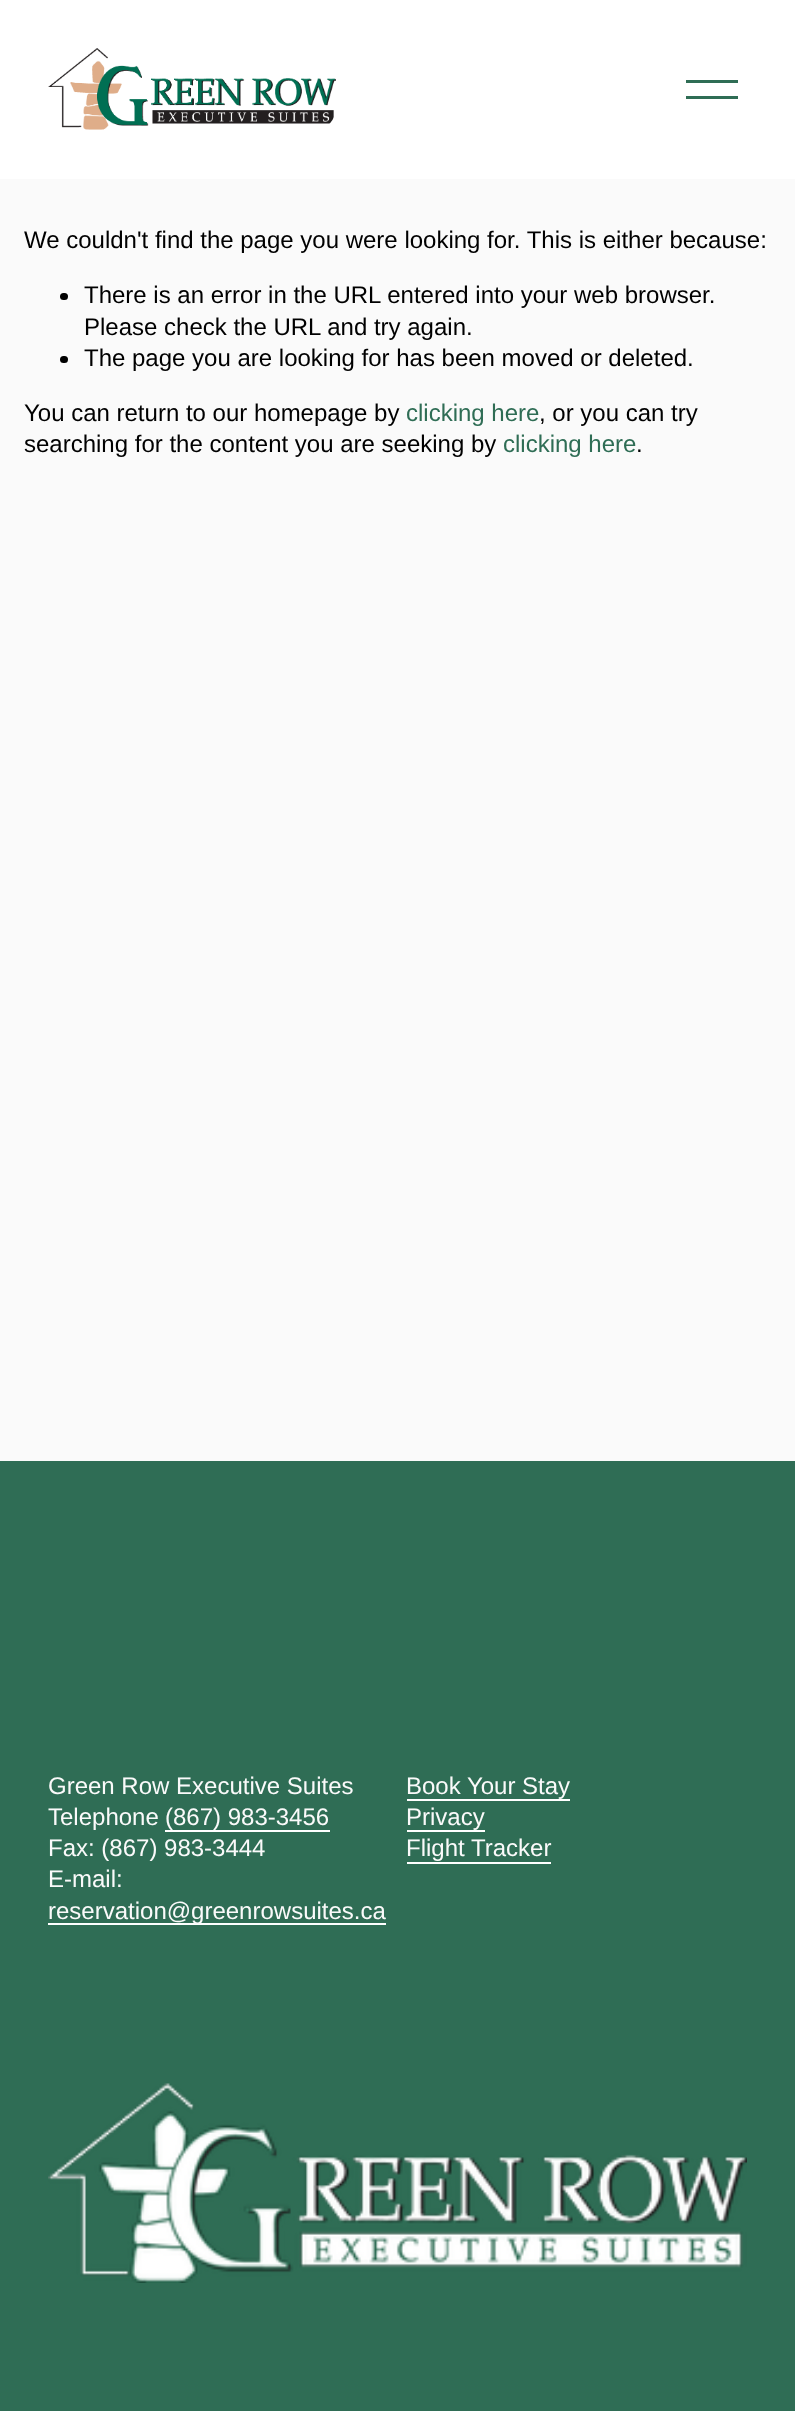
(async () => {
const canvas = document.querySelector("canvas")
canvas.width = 795
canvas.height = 2411
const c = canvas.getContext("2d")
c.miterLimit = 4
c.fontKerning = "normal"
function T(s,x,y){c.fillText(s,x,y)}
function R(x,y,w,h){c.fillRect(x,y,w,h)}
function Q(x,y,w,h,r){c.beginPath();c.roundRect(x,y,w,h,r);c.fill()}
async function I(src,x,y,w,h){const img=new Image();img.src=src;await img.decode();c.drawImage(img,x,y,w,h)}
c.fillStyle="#fafafa"
R(0,0,795,2411)
c.fillStyle="#fff"
R(0,0,795,179)
await I("1.png",48,48,288,82)
c.fillStyle="#2f6d55"
R(686,80,52,3)
R(686,96,52,3)
c.font="24px Liberation Sans"
c.fillStyle="#000"
T("We couldn't find the page you were looking for. This is either because:",24,248)
Q(60,293,8,7,3.5)
T("There is an error in the URL entered into your web browser.",84,303)
T("Please check the URL and try again.",84,335)
Q(60,356,8,7,3.5)
T("The page you are looking for has been moved or deleted.",84,366)
T("You can return to our homepage by",24,421)
c.fillStyle="#2f6d55"
T("clicking here",406,421)
c.fillStyle="#000"
T(", or you can try",539,421)
T("searching for the content you are seeking by",24,452)
c.fillStyle="#2f6d55"
T("clicking here",503,452)
c.fillStyle="#000"
T(".",636,452)
c.fillStyle="#2f6d55"
R(0,1461,795,950)
c.fillStyle="#fafafa"
T("Green Row Executive Suites",48,1794)
T("Telephone",48,1825)
T("(867) 983-3456",165,1825)
c.fillStyle="#fff"
R(165,1830,165,2)
c.fillStyle="#fafafa"
T("Fax: (867) 983-3444",48,1856)
T("E-mail:",48,1887)
c.fillStyle="#fff"
R(48,1923,338,2)
c.fillStyle="#fafafa"
T("reservation@greenrowsuites.ca",48,1919)
T("Book Your Stay",406,1794)
c.fillStyle="#fff"
R(407,1799,163,2)
c.fillStyle="#fafafa"
T("Privacy",406,1825)
c.fillStyle="#fff"
R(407,1830,78,2)
c.fillStyle="#fafafa"
T("Flight Tracker",406,1856)
c.fillStyle="#fff"
R(407,1862,144,2)
await I("2.png",48,2083,699,200)
})()
